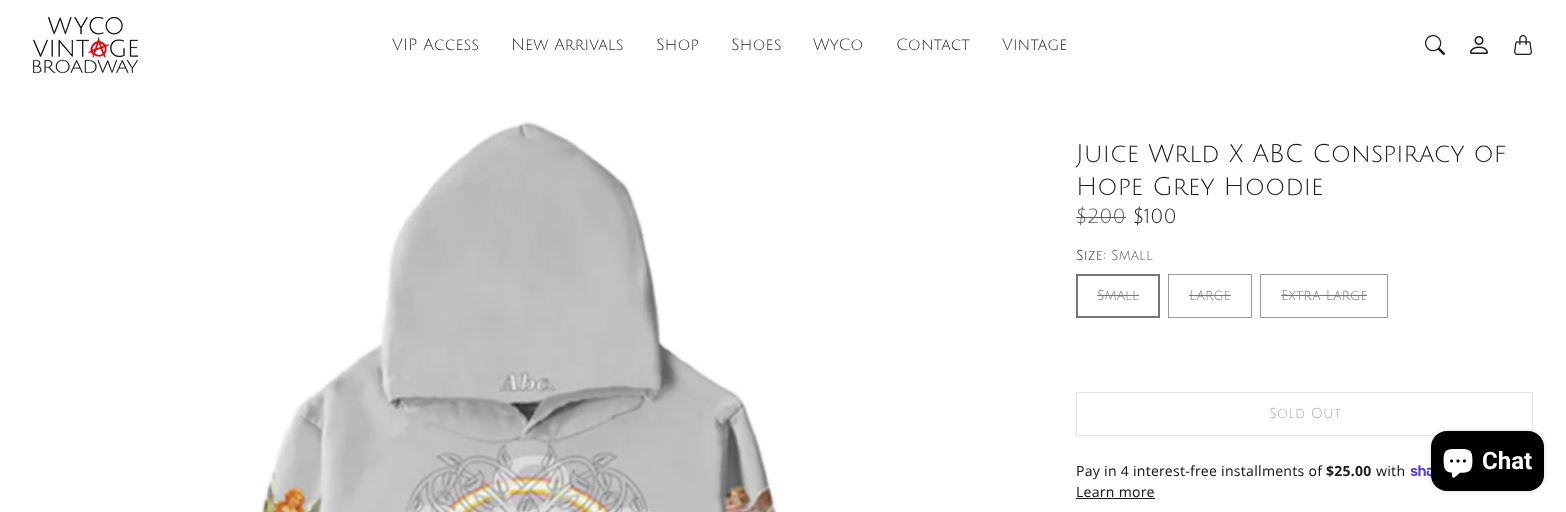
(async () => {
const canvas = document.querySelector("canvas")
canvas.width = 1566
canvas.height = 512
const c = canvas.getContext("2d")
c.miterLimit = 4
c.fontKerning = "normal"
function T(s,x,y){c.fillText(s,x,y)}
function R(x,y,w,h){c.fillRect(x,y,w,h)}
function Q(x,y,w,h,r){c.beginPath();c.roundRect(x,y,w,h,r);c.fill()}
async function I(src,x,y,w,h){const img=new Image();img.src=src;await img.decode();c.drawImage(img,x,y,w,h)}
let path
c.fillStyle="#fff"
R(0,0,1566,512)
await I("1.png",33,17,105,56)
c.letterSpacing="0.1px"
c.font="16px Julius Sans One"
c.fillStyle="#1c1b1b"
T("VIP Access",392,50)
T("New Arrivals",511,50)
T("Shop",656,50)
T("Shoes",731,50)
T("WyCo",813,50)
T("Contact",896,50)
T("Vintage",1002,50)
await I("2.png",1425,35,20,20)
await I("3.png",1470,36,18,18)
await I("4.png",1514,35,18,20)
await I("5.png",261,121,517,391)
c.letterSpacing="0px"
c.font="25px Julius Sans One"
T("Juice Wrld X ABC Conspiracy of",1076,162)
T("Hope Grey Hoodie",1076,195)
c.font="20px Julius Sans One"
c.fillStyle="#5d5a5a"
T("$200",1076,223)
R(1076,217,50,1)
c.fillStyle="#1c1b1b"
T("$100",1133,223)
c.letterSpacing="0.1px"
c.font="14px Julius Sans One"
T("Size:",1076,260)
c.fillStyle="#5d5a5a"
T("Small",1111,260)
c.save()
c.beginPath()
c.rect(1077,275,82,42)
c.clip()
c.fillStyle="#777676"
path = new Path2D("M978 176h280v240h-280zm98 98h82v42h-82z")
c.fill(path,"evenodd")
path = new Path2D("M978 176h280v240h-280zm100 100h82v42h-82z")
c.fill(path,"evenodd")
c.restore()
c.strokeStyle="#777676"
c.strokeRect(1076.5,274.5,83,43)
c.fillStyle="#777676"
T("Small",1097,300)
R(1097,295,42,1)
c.strokeStyle="#999898"
c.strokeRect(1168.5,274.5,83,43)
T("Large",1189,300)
R(1189,295,42,1)
c.strokeRect(1260.5,274.5,127,43)
T("Extra Large",1281,300)
R(1281,295,86,1)
c.strokeStyle="#e4e4e4"
c.strokeRect(1076.5,392.5,456,43)
c.fillStyle="#a9a8a8"
T("Sold Out",1269,418)
c.letterSpacing="0.25px"
c.font="14px Noto Sans"
c.fillStyle="#1c1b1b"
T("Pay in 4 interest-free installments of",1076,476)
c.font="bold 14px Noto Sans"
T("$25.00",1326,476)
c.font="14px Noto Sans"
T("with",1376,476)
await I("6.png",1410,465,22,12)
T("Learn more",1076,497)
R(1076,498,79,1)
c.fillStyle="#00000026"
c.filter="blur(2.5px)"
c.beginPath()
c.roundRect(1431,431,113,60,16)
c.fill()
c.filter="none"
c.fillStyle="#000"
Q(1431,431,113,60,16)
await I("7.png",1443,449,30,29)
c.letterSpacing="0px"
c.font="bold 24px Roboto"
c.fillStyle="#fff"
T("Chat",1482,469)
})()
